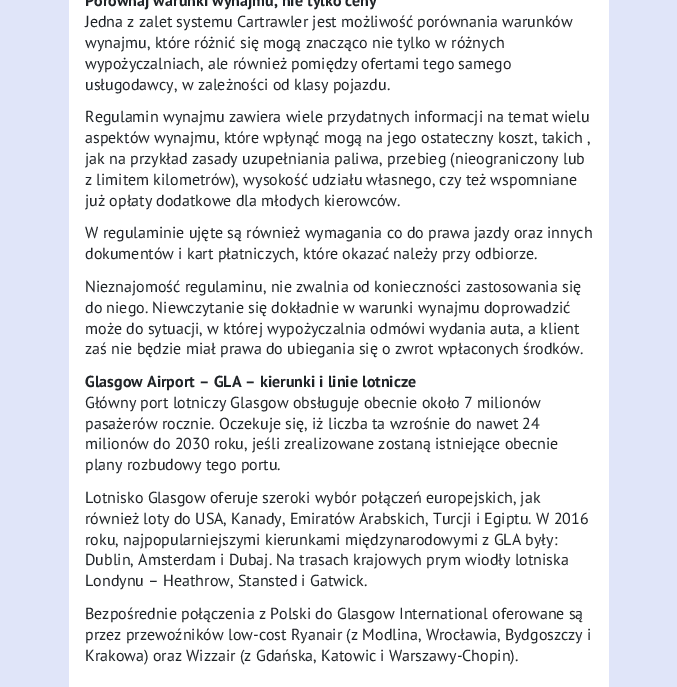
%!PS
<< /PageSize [677 687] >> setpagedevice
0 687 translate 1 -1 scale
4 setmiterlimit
0.878 0.898 0.976 setrgbcolor
0 0 677 687 rectfill
1 setgray
69 0 540 687 rectfill
/PTSans-Bold [16 0 0 -16 0 0] selectfont
0.129 0.145 0.161 setrgbcolor
85 6 moveto (Porównaj warunki wynajmu, nie tylko ceny) show
/PTSans-Regular [16 0 0 -16 0 0] selectfont
85 27 moveto (Jedna z zalet systemu Cartrawler jest możliwość porównania warunków) show
85 48 moveto (wynajmu, które różnić się mogą znacząco nie tylko w różnych) show
85 69 moveto (wypożyczalniach, ale również pomiędzy ofertami tego samego) show
85 90 moveto (usługodawcy, w zależności od klasy pojazdu.) show
85 122 moveto (Regulamin wynajmu zawiera wiele przydatnych informacji na temat wielu) show
85 143 moveto (aspektów wynajmu, które wpłynąć mogą na jego ostateczny koszt, takich ,) show
85 164 moveto (jak na przykład zasady uzupełniania paliwa, przebieg \(nieograniczony lub) show
85 185 moveto (z limitem kilometrów\), wysokość udziału własnego, czy też wspomniane) show
85 206 moveto (już opłaty dodatkowe dla młodych kierowców.) show
85 238 moveto (W regulaminie ujęte są również wymagania co do prawa jazdy oraz innych) show
85 259 moveto (dokumentów i kart płatniczych, które okazać należy przy odbiorze.) show
85 292 moveto (Nieznajomość regulaminu, nie zwalnia od konieczności zastosowania się) show
85 313 moveto (do niego. Niewczytanie się dokładnie w warunki wynajmu doprowadzić) show
85 334 moveto (może do sytuacji, w której wypożyczalnia odmówi wydania auta, a klient) show
85 354 moveto (zaś nie będzie miał prawa do ubiegania się o zwrot wpłaconych środków.) show
/PTSans-Bold [16 0 0 -16 0 0] selectfont
85 387 moveto (Glasgow Airport – GLA – kierunki i linie lotnicze) show
/PTSans-Regular [16 0 0 -16 0 0] selectfont
85 408 moveto (Główny port lotniczy Glasgow obsługuje obecnie około 7 milionów) show
85 429 moveto (pasażerów rocznie. Oczekuje się, iż liczba ta wzrośnie do nawet 24) show
85 449 moveto (milionów do 2030 roku, jeśli zrealizowane zostaną istniejące obecnie) show
85 470 moveto (plany rozbudowy tego portu.) show
85 503 moveto (Lotnisko Glasgow oferuje szeroki wybór połączeń europejskich, jak) show
85 524 moveto (również loty do USA, Kanady, Emiratów Arabskich, Turcji i Egiptu. W 2016) show
85 545 moveto (roku, najpopularniejszymi kierunkami międzynarodowymi z GLA były:) show
85 565 moveto (Dublin, Amsterdam i Dubaj. Na trasach krajowych prym wiodły lotniska) show
85 586 moveto (Londynu – Heathrow, Stansted i Gatwick.) show
85 619 moveto (Bezpośrednie połączenia z Polski do Glasgow International oferowane są) show
85 640 moveto (przez przewoźników low-cost Ryanair \(z Modlina, Wrocławia, Bydgoszczy i) show
85 661 moveto (Krakowa\) oraz Wizzair \(z Gdańska, Katowic i Warszawy-Chopin\).) show
showpage
